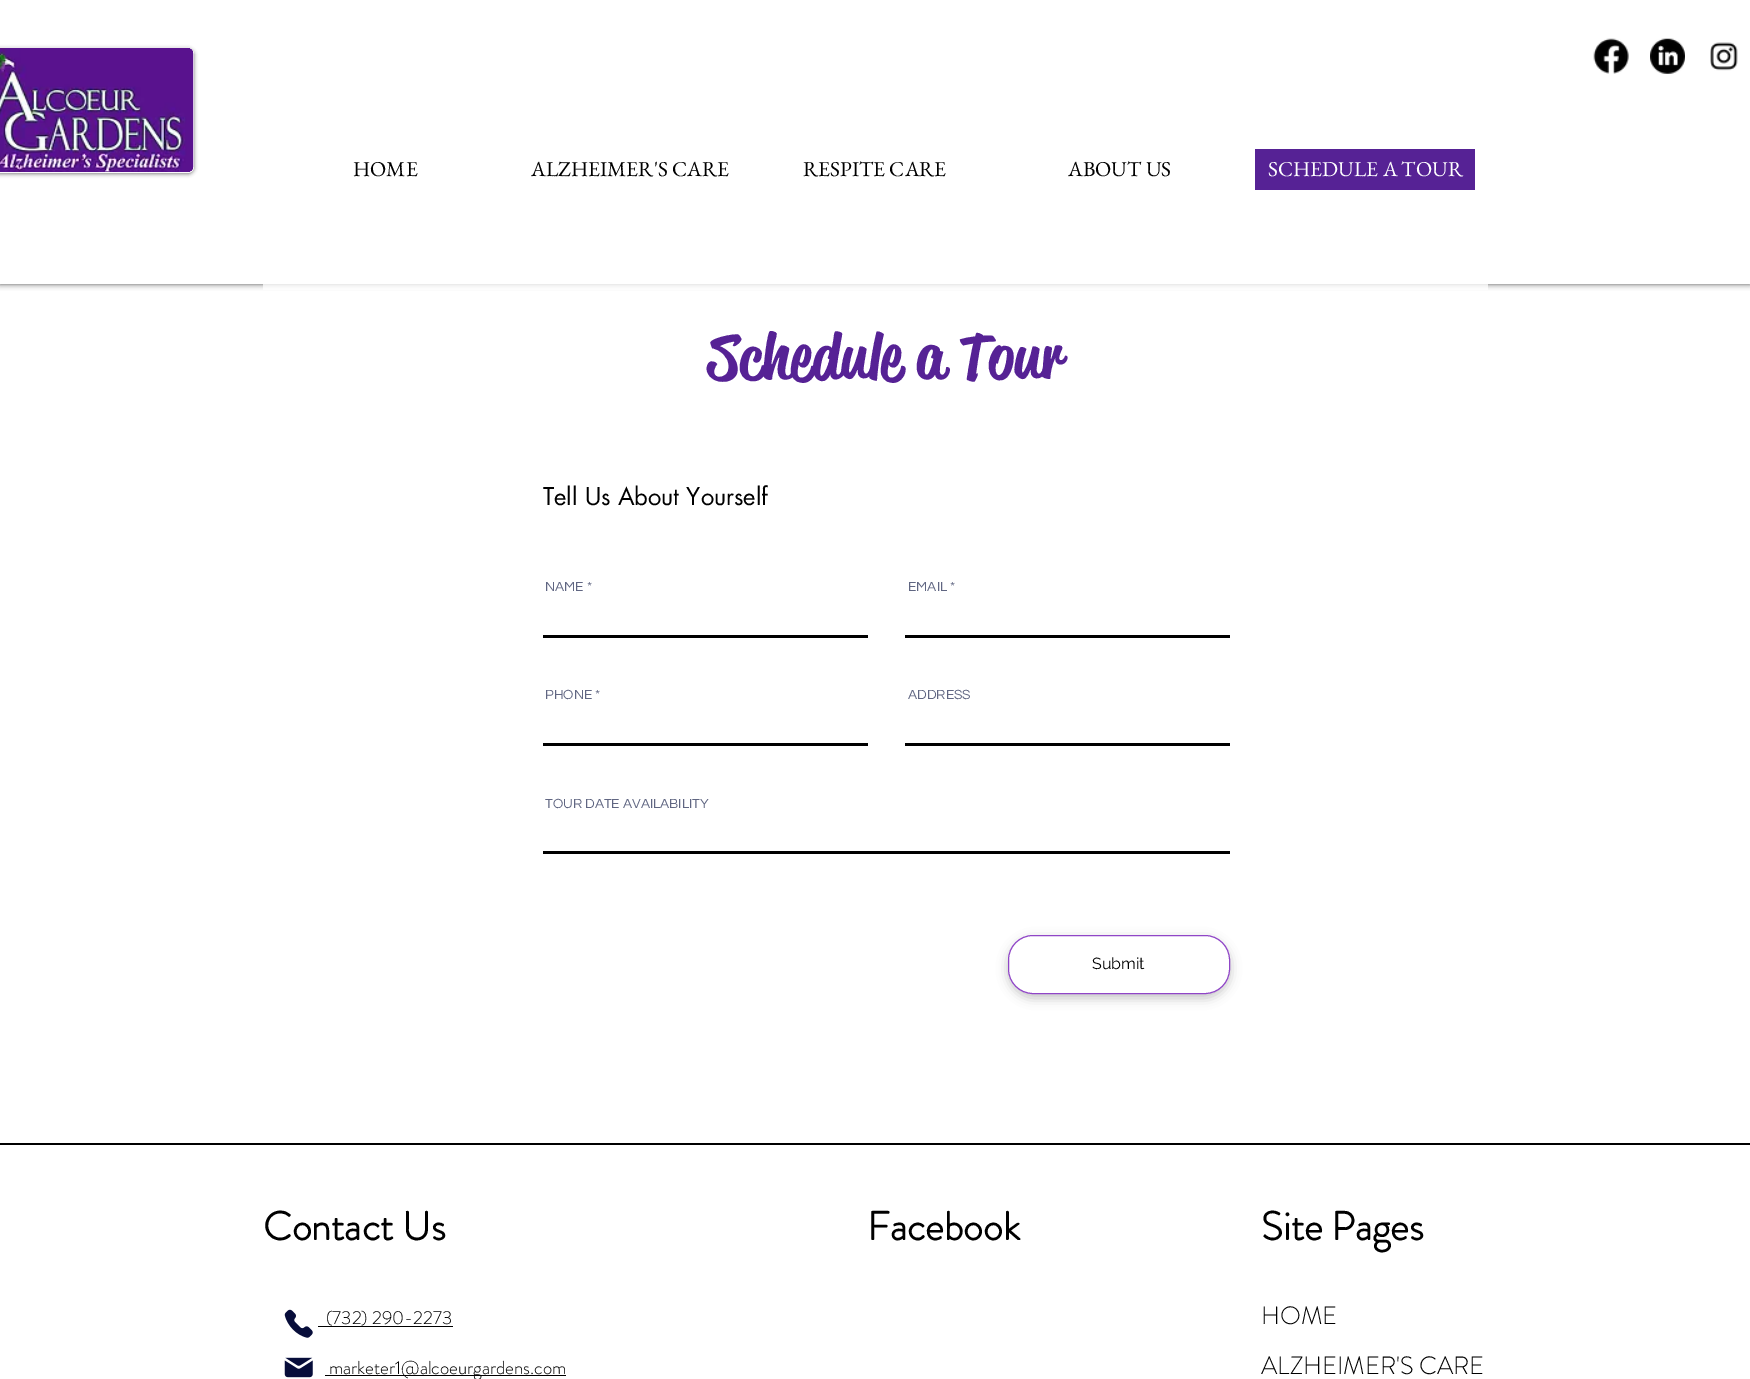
%!PS
<< /PageSize [1750 1379] /PageUsesTransparency true >> setpagedevice
/alpha { dup .setfillconstantalpha .setstrokeconstantalpha } def
/roundrect { 5 dict begin { /r /h /w /y /x } { exch def } forall
  x r add y moveto x w add y 2 copy h add r arct x w add y h add x 1 index r arct
  x y h add x y r arct x y 2 copy exch w add exch r arct closepath end } def
/shadow { 12 dict begin { /a /b /q /h /w /y /x } { exch def } forall gsave /was 0 def
  9 -2 -9 { dup b mul 4 div /e exch def 1 sub .425 mul 2.718 exch exp 1 add a .99 .min exch div /now exch def
    1 1 now sub 1 was sub div sub alpha /was now def
    w h .min e 2 mul add 0 gt { x e sub y e sub w e 2 mul add h e 2 mul add
      q e add b .6 mul add w h .min 2 div e add .min 0 .max roundrect fill } if } for grestore end } def
/picture { 5 dict begin { /h /w /y /x /name } { exch def } forall
  gsave x y translate w h scale
  w h 8 [w 0 0 h 0 0] name (r) file false 3 colorimage grestore end } def
0 .pushpdf14devicefilter
0 1379 translate 1 -1 scale
4 setmiterlimit
1 setgray
0 0 1750 1379 rectfill
0 setgray
0 0 1750 284 0 3 0.7 shadow
1 setgray
0 0 1750 284 rectfill
0 setgray
-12 49 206 125 6 2 0.5 shadow
1 setgray
-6 48 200 125 6 roundrect fill
(img1.rgb) 0 47 194 126 picture
/EBGaramond-Regular [21.25 0 0 -21.25 0 0] selectfont
0 setgray
353 176 moveto (HOME) show
531 176 moveto (ALZHEIMER'S CARE) show
803 176 moveto (RESPITE CARE) show
1068 176 moveto (ABOUT US) show
0.337 0.133 0.584 setrgbcolor
1255 149 220 41 rectfill
1 setgray
1268 176 moveto (SCHEDULE A TOUR) show
(img2.rgb) 1593 38 36 36 picture
(img3.rgb) 1650 38 35 36 picture
(img4.rgb) 1710 42 28 29 picture
0.75 alpha
263 284 1225 6 rectfill
/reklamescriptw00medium-Medium [62.5 0 0 -62.5 0 0] selectfont
1 alpha
0.337 0.133 0.584 setrgbcolor
708 378 moveto (Schedule a Tour) show
/futura-Regular [23.75 0 0 -23.75 0 0] selectfont
0 setgray
543 505 moveto (Tell Us About Yourself) show
/Questrial-Regular [13.75 0 0 -13.75 0 0] selectfont
0.376 0.4 0.51 setrgbcolor
545 591 moveto (NAME *) show
0 setgray
543 635 325 3 rectfill
0.376 0.4 0.51 setrgbcolor
908 591 moveto (EMAIL *) show
0 setgray
905 635 325 3 rectfill
0.376 0.4 0.51 setrgbcolor
545 699 moveto (PHONE *) show
0 setgray
543 743 325 3 rectfill
0.376 0.4 0.51 setrgbcolor
908 699 moveto (ADDRESS) show
0 setgray
905 743 325 3 rectfill
0.376 0.4 0.51 setrgbcolor
545 808 moveto (TOUR DATE AVAILABILITY) show
0 setgray
543 851 687 3 rectfill
1008 939 222 59 25 5.5 0.23 shadow
1 setgray
1008.5 935.5 221 58 24.5 roundrect gsave fill grestore
0.565 0.275 0.78 setrgbcolor
stroke
/Raleway-Regular [16 0 0 -16 0 0] selectfont
0 setgray
1092 969 moveto (Submit) show
0 1143 1750 2 rectfill
/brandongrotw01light-Bold [40 0 0 -40 0 0] selectfont
263 1240 moveto (Contact Us) show
867 1240 moveto (Facebook) show
1261 1240 moveto (Site Pages) show
(img5.rgb) 284 1309 29 29 picture
/brandongrotw01light-Light [18.75 0 0 -18.75 0 0] selectfont
326 1324 moveto (\(732\) 290-2273) show
318 1326 135 1 rectfill
325 1375 241 1 rectfill
329 1374 moveto (marketer1@alcoeurgardens.com) show
/brandongrotw01light-Light [25 0 0 -25 0 0] selectfont
1261 1324 moveto (HOME) show
1261 1374 moveto (ALZHEIMER'S CARE) show
(img6.rgb) 284 1357 29 21 picture
.poppdf14devicefilter showpage
